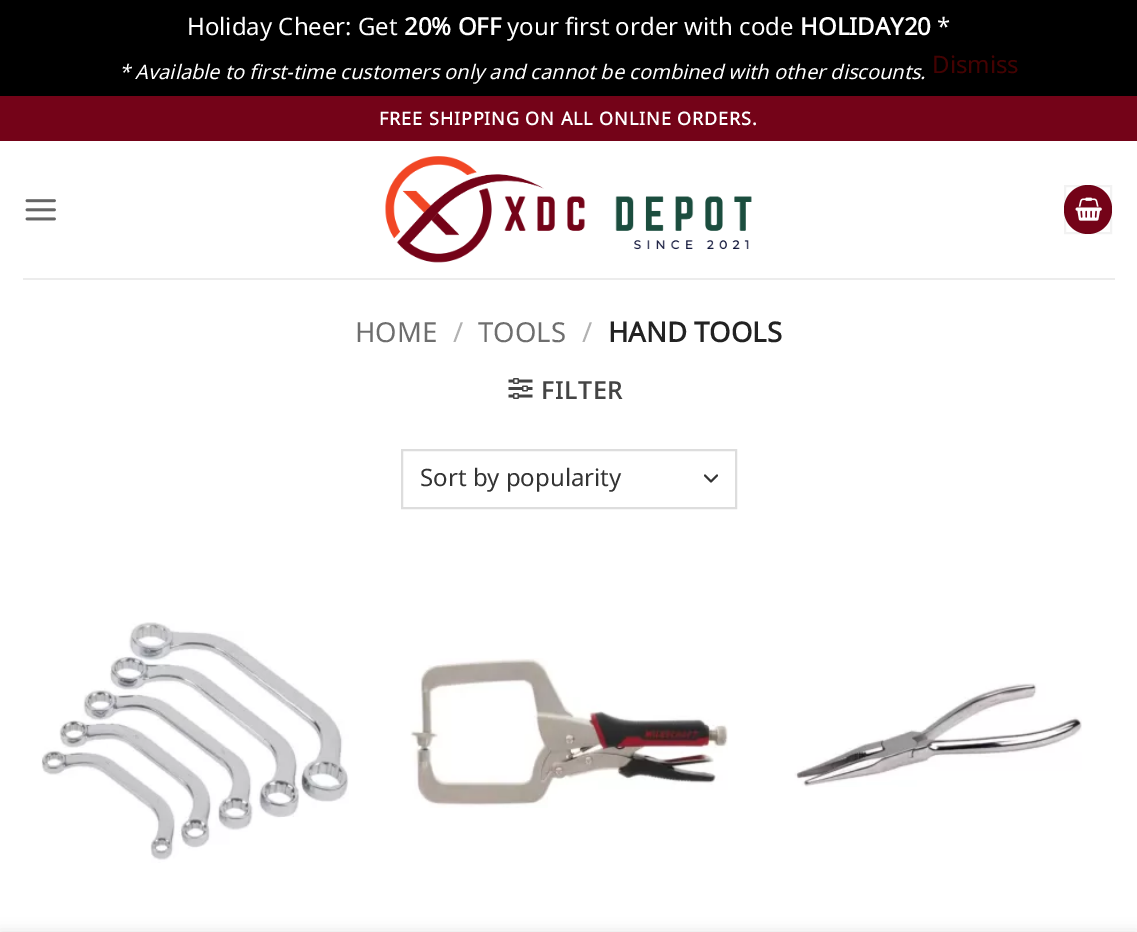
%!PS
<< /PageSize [1137 932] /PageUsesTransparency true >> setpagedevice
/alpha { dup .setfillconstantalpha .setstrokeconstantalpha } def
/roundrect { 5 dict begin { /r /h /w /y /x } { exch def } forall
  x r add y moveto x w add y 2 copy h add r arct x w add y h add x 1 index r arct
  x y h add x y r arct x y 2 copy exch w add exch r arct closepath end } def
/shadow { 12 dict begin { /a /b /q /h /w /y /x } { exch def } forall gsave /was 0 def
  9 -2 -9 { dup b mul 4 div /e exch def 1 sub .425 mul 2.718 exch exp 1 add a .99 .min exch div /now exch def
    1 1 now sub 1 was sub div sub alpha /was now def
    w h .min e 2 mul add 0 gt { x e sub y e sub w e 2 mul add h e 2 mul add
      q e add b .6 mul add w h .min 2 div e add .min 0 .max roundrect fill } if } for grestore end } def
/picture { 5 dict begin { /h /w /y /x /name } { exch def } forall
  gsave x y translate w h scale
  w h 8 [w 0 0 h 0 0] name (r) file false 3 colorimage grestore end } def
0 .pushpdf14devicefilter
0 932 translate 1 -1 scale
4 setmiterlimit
0 setgray
0 0 1137 932 rectfill
/NotoSans-Regular [24 0 0 -24 0 0] selectfont
1 setgray
187 35 moveto (Holiday Cheer: Get) show
/NotoSans-Bold [24 0 0 -24 0 0] selectfont
404 35 moveto (20% OFF) show
/NotoSans-Regular [24 0 0 -24 0 0] selectfont
507 35 moveto (your first order with code) show
/NotoSans-Bold [24 0 0 -24 0 0] selectfont
800 35 moveto (HOLIDAY20) show
/NotoSans-Regular [24 0 0 -24 0 0] selectfont
937 35 moveto (*) show
/NotoSans-Italic [20 0 0 -20 0 0] selectfont
119 79 moveto (* Available to first-time customers only and cannot be combined with other discounts.) show
/NotoSans-Regular [24 0 0 -24 0 0] selectfont
0.267 0.008 0.008 setrgbcolor
932 73 moveto (Dismiss) show
1 setgray
0 141 1137 791 rectfill
0.455 0.012 0.094 setrgbcolor
0 96 1137 45 rectfill
/NotoSans-Bold [18 0 0 -18 0 0] selectfont
1 setgray
379 125 moveto 0.9 0 (FREE SHIPPING ON ALL ONLINE ORDERS.) ashow
(img1.rgb) 25 199 31 22 picture
(img2.rgb) 385 156 367 107 picture
0.455 0.012 0.094 setrgbcolor
1064 185 48 49 24 roundrect fill
0.05 alpha
0 setgray
2 setlinewidth
1065 186 46 47 rectstroke
1 alpha
(img3.rgb) 1075 197 27 24 picture
0.925 setgray
23 278 1092 2 rectfill
/NotoSans-Regular [27.5 0 0 -27.5 0 0] selectfont
0.431 setgray
355 342 moveto (HOME) show
0.698 setgray
453 342 moveto (/) show
0.431 setgray
478 342 moveto (TOOLS) show
0.698 setgray
582 342 moveto (/) show
/NotoSans-Bold [27.5 0 0 -27.5 0 0] selectfont
0.133 setgray
608 342 moveto (HAND TOOLS) show
(img4.rgb) 508 378 25 21 picture
/NotoSans-Bold [24 0 0 -24 0 0] selectfont
0.267 setgray
541 399 moveto 1.25 0 (FILTER) ashow
0.2 setgray
1 setlinecap
1 setlinejoin
newpath 705 475.5 moveto 711 481.5 lineto 717 475.5 lineto stroke
0.867 setgray
0 setlinecap
0 setlinejoin
402 450 334 58 rectstroke
/NotoSans-Regular [24 0 0 -24 0 0] selectfont
0.2 setgray
420 486 moveto (Sort by popularity) show
(img5.rgb) 41 622 308 241 picture
(img6.rgb) 410 658 318 150 picture
(img7.rgb) 794 683 288 104 picture
0 setgray
0 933 1137 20 0 7 0.14 shadow
.poppdf14devicefilter showpage
